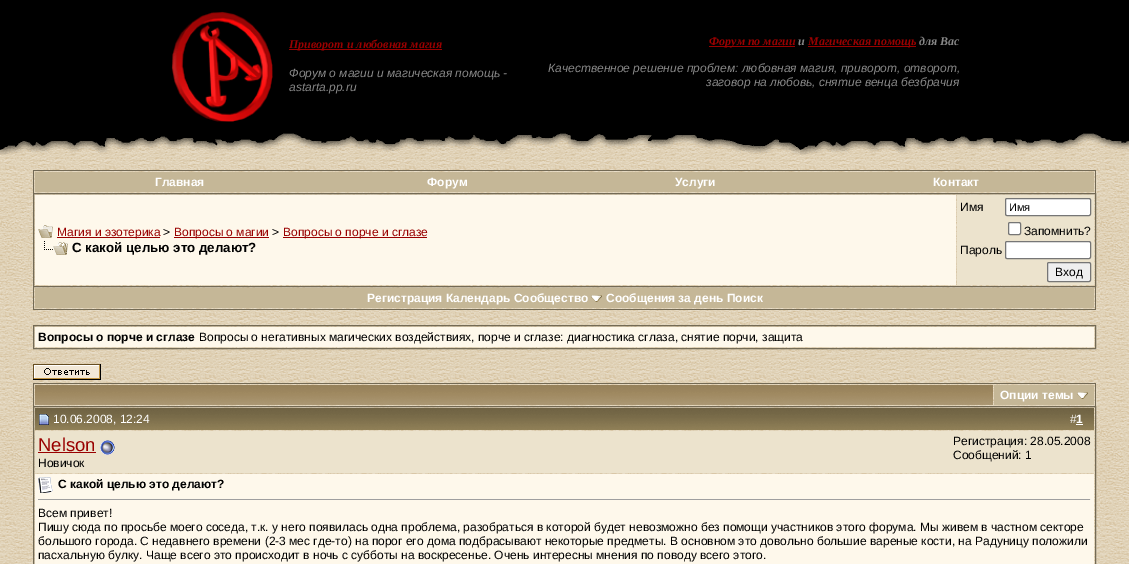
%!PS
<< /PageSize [1129 564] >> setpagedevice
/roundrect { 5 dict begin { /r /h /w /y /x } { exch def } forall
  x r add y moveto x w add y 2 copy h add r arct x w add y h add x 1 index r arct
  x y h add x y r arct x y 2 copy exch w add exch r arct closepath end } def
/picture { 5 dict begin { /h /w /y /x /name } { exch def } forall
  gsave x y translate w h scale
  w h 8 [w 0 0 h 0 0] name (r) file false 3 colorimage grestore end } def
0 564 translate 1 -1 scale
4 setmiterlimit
1 setgray
0 0 1129 564 rectfill
(img1.rgb) 0 155 1129 409 picture
0 setgray
0 0 1129 133 rectfill
(img2.rgb) 0 133 1129 22 picture
(img3.rgb) 171 11 102 111 picture
0.6 0 0 setrgbcolor
289 49 153 1 rectfill
/LiberationSerif-BoldItalic [12 0 0 -12 0 0] selectfont
289 48 moveto (Приворот и любовная магия) show
/LiberationSans-Italic [12 0 0 -12 0 0] selectfont
0.533 setgray
289 77 moveto (Форум о магии и магическая помощь -) show
289 91 moveto (astarta.pp.ru) show
0.6 0 0 setrgbcolor
709 46 86 1 rectfill
/LiberationSerif-BoldItalic [12 0 0 -12 0 0] selectfont
709 45 moveto (Форум по магии) show
0.533 setgray
798 45 moveto (и) show
0.6 0 0 setrgbcolor
808 46 108 1 rectfill
808 45 moveto (Магическая помощь) show
0.533 setgray
919 45 moveto (для Вас) show
/LiberationSans-Italic [12 0 0 -12 0 0] selectfont
548 72 moveto (Качественное решение проблем: любовная магия, приворот, отворот,) show
706 86 moveto (заговор на любовь, снятие венца безбрачия) show
0.451 0.416 0.333 setrgbcolor
33 170 1063 1 rectfill
1095 170 1 23 rectfill
33 170 1 23 rectfill
0.773 0.718 0.592 setrgbcolor
35 172 1059 20 rectfill
/LiberationSans-Bold [12 0 0 -12 0 0] selectfont
1 setgray
155 186 moveto (Главная) show
427 186 moveto (Форум) show
675 186 moveto (Услуги) show
933 186 moveto (Контакт) show
0.451 0.416 0.333 setrgbcolor
33.5 193.5 1062 93 rectstroke
0.996 0.973 0.922 setrgbcolor
35 195 921 90 rectfill
(img4.rgb) 38 225 15 13 picture
0.6 0 0 setrgbcolor
57 237 103 1 rectfill
/LiberationSans-Regular [12 0 0 -12 0 0] selectfont
57 236 moveto (Магия и эзотерика) show
0 setgray
163 236 moveto (>) show
0.6 0 0 setrgbcolor
174 237 95 1 rectfill
174 236 moveto (Вопросы о магии) show
0 setgray
272 236 moveto (>) show
0.6 0 0 setrgbcolor
283 237 144 1 rectfill
283 236 moveto (Вопросы о порче и сглазе) show
(img5.rgb) 44 241 24 14 picture
/LiberationSans-Bold [13.3 0 0 -13.3 0 0] selectfont
0 setgray
72 252 moveto (С какой целью это делают?) show
0.925 0.89 0.804 setrgbcolor
957 195 137 90 rectfill
/LiberationSans-Regular [12 0 0 -12 0 0] selectfont
0 setgray
960 211 moveto (Имя) show
1 setgray
1005.5 198.5 85 17 1.5 roundrect gsave fill grestore
0.463 setgray
stroke
/LiberationSans-Regular [11 0 0 -11 0 0] selectfont
0 setgray
1009 211 moveto (Имя) show
1 setgray
1008.5 222.5 12 12 1.5 roundrect gsave fill grestore
0.463 setgray
stroke
/LiberationSans-Regular [12 0 0 -12 0 0] selectfont
0 setgray
1024 235 moveto (Запомнить?) show
960 254 moveto (Пароль) show
1 setgray
1005.5 241.5 85 17 1.5 roundrect gsave fill grestore
0.463 setgray
stroke
0.937 setgray
1047.5 262.5 43 19 1.5 roundrect gsave fill grestore
0.463 setgray
stroke
0 setgray
1055 276 moveto (Вход) show
0.451 0.416 0.333 setrgbcolor
1095 287 1 23 rectfill
33 309 1063 1 rectfill
33 287 1 23 rectfill
0.773 0.718 0.592 setrgbcolor
35 288 1059 20 rectfill
/LiberationSans-Bold [12 0 0 -12 0 0] selectfont
1 setgray
367 302 moveto (Регистрация Календарь Сообщество) show
(img6.rgb) 591 295 11 7 picture
606 302 moveto (Сообщения за день Поиск) show
0.451 0.416 0.333 setrgbcolor
33.5 325.5 1062 23 rectstroke
0.996 0.973 0.922 setrgbcolor
35 327 1059 20 rectfill
0 setgray
38 341 moveto (Вопросы о порче и сглазе) show
/LiberationSans-Regular [12 0 0 -12 0 0] selectfont
199 341 moveto (Вопросы о негативных магических воздействиях, порче и сглазе: диагностика сглаза, снятие порчи, защита) show
(img7.rgb) 33 364 68 16 picture
0.451 0.416 0.333 setrgbcolor
33 383 1063 1 rectfill
1095 383 1 23 rectfill
33 383 1 23 rectfill
(img8.rgb) 35 385 958 20 picture
0.773 0.718 0.592 setrgbcolor
994 385 100 20 rectfill
/LiberationSans-Bold [12 0 0 -12 0 0] selectfont
1 setgray
1000 399 moveto (Опции темы) show
(img6.rgb) 1077 392 11 7 picture
0.451 0.416 0.333 setrgbcolor
33.5 406.5 1062 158 rectstroke
(img9.rgb) 35 408 1059 22 picture
(img10.rgb) 39 414 10 11 picture
/LiberationSans-Regular [12 0 0 -12 0 0] selectfont
1 setgray
53 423 moveto (10.06.2008, 12:24) show
1070 423 moveto (#) show
/LiberationSans-Bold [12 0 0 -12 0 0] selectfont
1076 423 moveto (1) show
1076 424 7 1 rectfill
0.925 0.89 0.804 setrgbcolor
35 431 1059 42 rectfill
/LiberationSans-Regular [18.5 0 0 -18.5 0 0] selectfont
0.6 0 0 setrgbcolor
38 451 moveto (Nelson) show
38 452 58 1 rectfill
(img11.rgb) 100 440 15 15 picture
/LiberationSans-Regular [12 0 0 -12 0 0] selectfont
0 setgray
38 467 moveto (Новичок) show
953 445 moveto (Регистрация: 28.05.2008) show
953 459 moveto (Сообщений: 1) show
0.996 0.973 0.922 setrgbcolor
35 474 1059 90 rectfill
(img12.rgb) 38 477 15 16 picture
/LiberationSans-Bold [12 0 0 -12 0 0] selectfont
0 setgray
58 488 moveto (С какой целью это делают?) show
0.624 setgray
38 499 1053 1 rectfill
0.933 setgray
1090 499 1 1 rectfill
/LiberationSans-Regular [12 0 0 -12 0 0] selectfont
0 setgray
38 517 moveto (Всем привет!) show
38 531 moveto (Пишу сюда по просьбе моего соседа, т.к. у него появилась одна проблема, разобраться в которой будет невозможно без помощи участников этого форума. Мы живем в частном секторе) show
38 545 moveto (большого города. С недавнего времени \(2-3 мес где-то\) на порог его дома подбрасывают некоторые предметы. В основном это довольно большие вареные кости, на Радуницу положили) show
38 559 moveto (пасхальную булку. Чаще всего это происходит в ночь с субботы на воскресенье. Очень интересны мнения по поводу всего этого.) show
showpage
